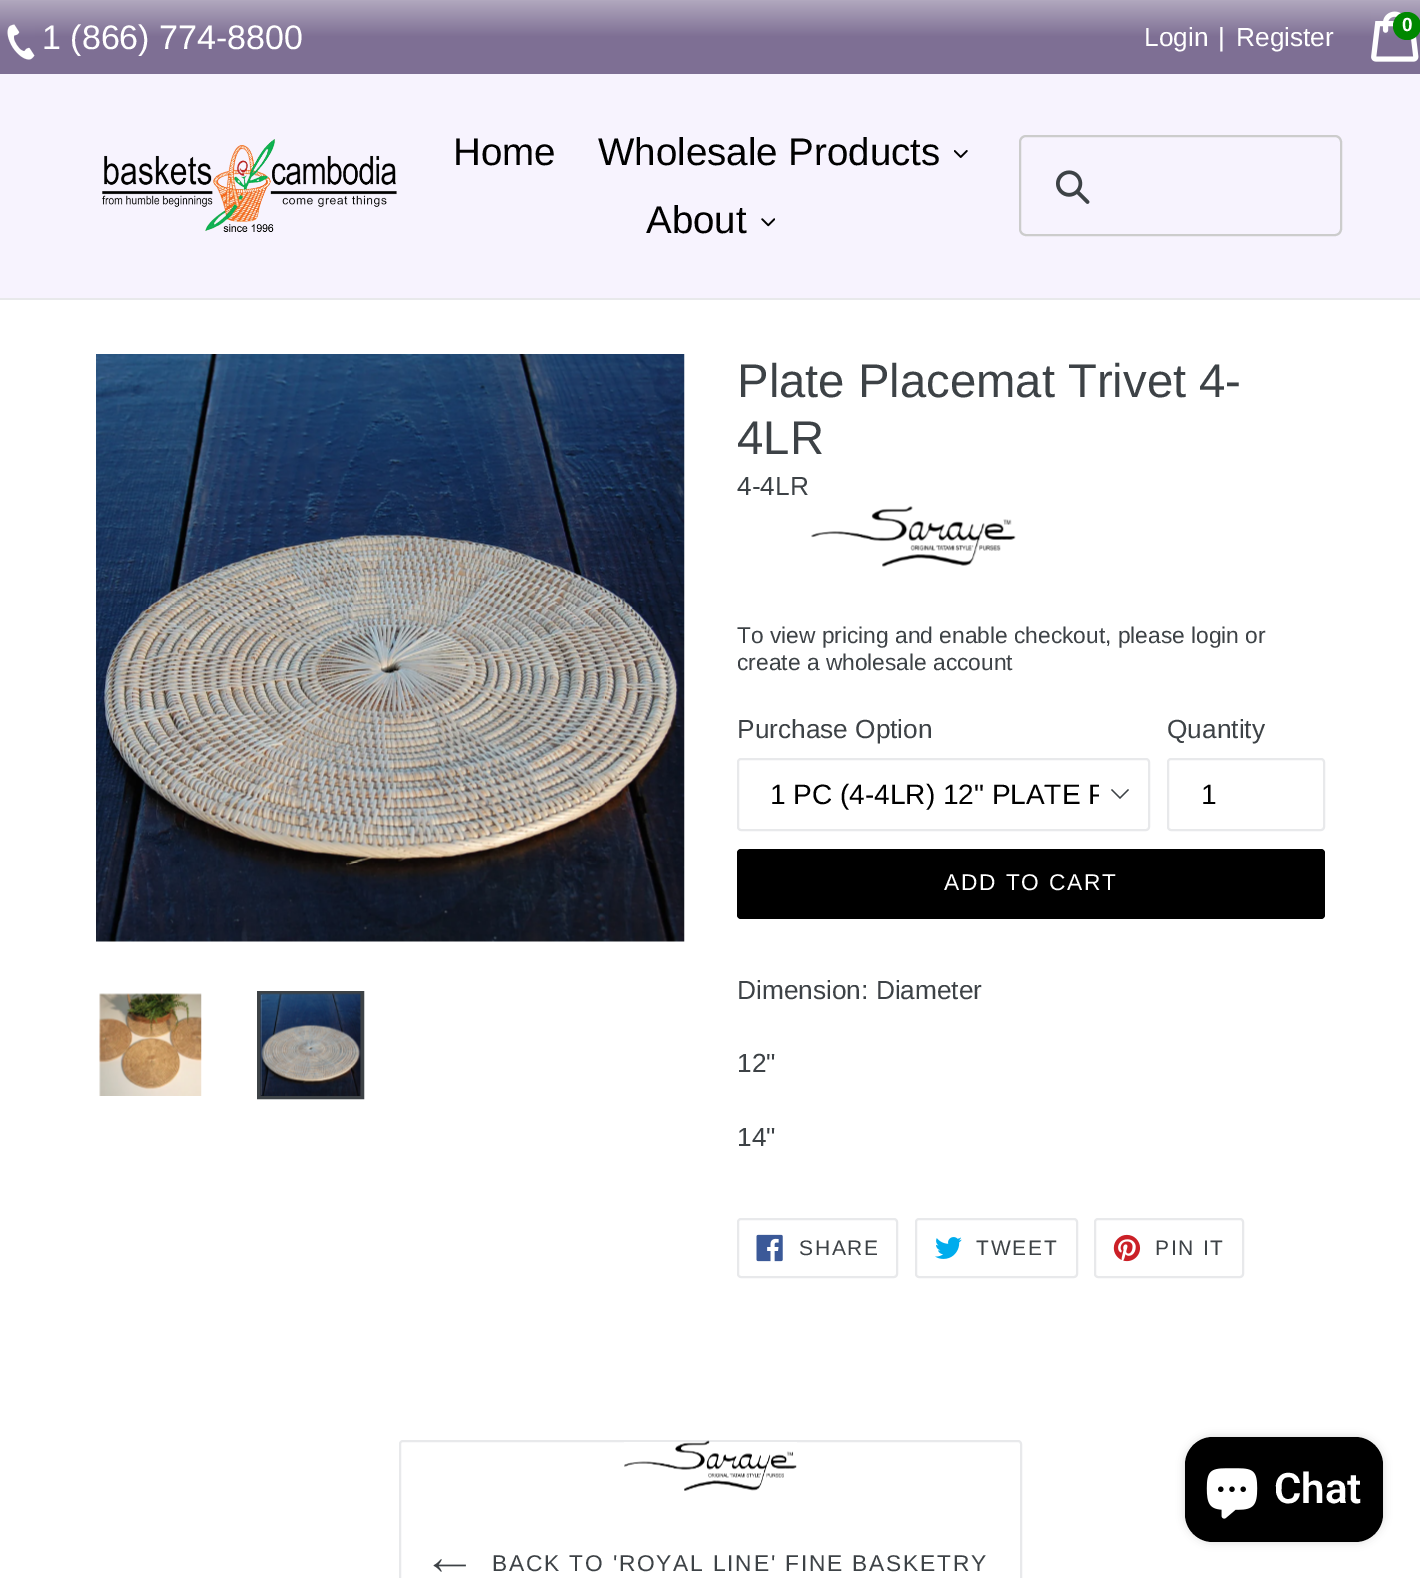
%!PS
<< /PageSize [1420 1578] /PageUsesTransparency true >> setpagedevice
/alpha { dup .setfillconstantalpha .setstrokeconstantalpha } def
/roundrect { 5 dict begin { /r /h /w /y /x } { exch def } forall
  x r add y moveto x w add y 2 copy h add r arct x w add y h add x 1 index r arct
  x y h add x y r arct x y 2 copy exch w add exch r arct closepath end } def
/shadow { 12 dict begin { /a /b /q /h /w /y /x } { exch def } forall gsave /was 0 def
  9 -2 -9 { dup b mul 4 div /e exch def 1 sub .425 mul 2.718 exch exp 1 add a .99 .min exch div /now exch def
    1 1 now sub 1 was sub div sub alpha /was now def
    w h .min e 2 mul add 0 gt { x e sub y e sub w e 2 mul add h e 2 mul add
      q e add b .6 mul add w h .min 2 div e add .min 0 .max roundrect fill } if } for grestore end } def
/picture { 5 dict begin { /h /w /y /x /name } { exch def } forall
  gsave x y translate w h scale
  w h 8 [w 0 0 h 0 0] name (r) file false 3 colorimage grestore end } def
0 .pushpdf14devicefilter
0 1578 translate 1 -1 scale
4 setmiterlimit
1 setgray
0 0 1420 1578 rectfill
gsave newpath 0 0 moveto 1420 0 lineto 1420 74 lineto 0 74 lineto closepath clip newpath
<< /ShadingType 2 /ColorSpace /DeviceRGB /Coords [711 74 711 0] /Extend [true true] /Function << /FunctionType 3 /Domain [0 1] /Functions [<< /FunctionType 2 /Domain [0 1] /C0 [0.494 0.435 0.58] /C1 [0.494 0.435 0.58] /N 1 >> << /FunctionType 2 /Domain [0 1] /C0 [0.494 0.435 0.58] /C1 [0.694 0.659 0.745] /N 1 >>] /Bounds [0.5] /Encode [0 1 0 1] >> >> shfill grestore
(img1.rgb) 7 24 28 36 picture
/LiberationSans-Regular [34 0 0 -34 0 0] selectfont
42 49 moveto (1 \(866\) 774-8800) show
(img2.rgb) 1371 11 48 51 picture
0 0.533 0 setrgbcolor
newpath 1407 26 14 0 360 arc closepath fill
/LiberationSans-Bold [19 0 0 -19 0 0] selectfont
1 setgray
1402 31 moveto (0) show
/LiberationSans-Regular [26.25 0 0 -26.25 0 0] selectfont
1144 46 moveto (Login) show
1218 46 moveto (|) show
1236 46 moveto (Register) show
0.969 0.953 0.996 setrgbcolor
0 74 1420 224 rectfill
0.91 0.914 0.922 setrgbcolor
0 298 1420 2 rectfill
(img3.rgb) 102 139 295 93 picture
/LiberationSans-Regular [38.5 0 0 -38.5 0 0] selectfont
0 setgray
453 165 moveto (Home) show
598 165 moveto (Wholesale Products) show
(img4.rgb) 954 150 14 8 picture
646 233 moveto (About) show
(img5.rgb) 761 218 14 9 picture
0.8 setgray
2 setlinewidth
1020 136 321 99 6 roundrect stroke
(img6.rgb) 1056 170 34 34 picture
(img7.rgb) 96 354 589 588 picture
(img8.rgb) 99 993 103 103 picture
0.239 0.259 0.275 setrgbcolor
4 setlinewidth
259 993 103 104 rectstroke
(img9.rgb) 260 993 101 103 picture
/LiberationSans-Regular [47.25 0 0 -47.25 0 0] selectfont
737 397 moveto (Plate Placemat Trivet 4-) show
737 454 moveto (4LR) show
/LiberationSans-Regular [26.25 0 0 -26.25 0 0] selectfont
737 495 moveto (4-4LR) show
(img10.rgb) 811 506 205 61 picture
/LiberationSans-Regular [22.75 0 0 -22.75 0 0] selectfont
737 643 moveto (To view pricing and enable checkout, please login or) show
737 670 moveto (create a wholesale account) show
/LiberationSans-Regular [26.25 0 0 -26.25 0 0] selectfont
737 738 moveto (Purchase Option) show
newpath 1120 799 moveto 1111 790 lineto 1112 789 lineto 1120 797 lineto 1128 789 lineto 1129 790 lineto closepath fill
0.91 0.914 0.922 setrgbcolor
2 setlinewidth
738 759 411 71 3 roundrect stroke
gsave
770 777 329 35 rectclip
/LiberationSans-Regular [28 0 0 -28 0 0] selectfont
0 setgray
770 804 moveto (1 PC \(4-4LR\) 12" PLATE P) show
grestore
0.239 0.259 0.275 setrgbcolor
1167 738 moveto (Quantity) show
0.91 0.914 0.922 setrgbcolor
1168 759 156 71 3 roundrect stroke
/LiberationSans-Regular [28 0 0 -28 0 0] selectfont
0 setgray
1201 804 moveto (1) show
737 849 588 70 4 roundrect fill
/LiberationSans-Regular [22.75 0 0 -22.75 0 0] selectfont
1 setgray
944 890 moveto 1.8 0 (ADD TO CART) ashow
/LiberationSans-Regular [26.25 0 0 -26.25 0 0] selectfont
0.239 0.259 0.275 setrgbcolor
737 999 moveto (Dimension: Diameter) show
737 1072 moveto (12") show
737 1146 moveto (14") show
0.91 0.914 0.922 setrgbcolor
738 1219 159 58 3 roundrect stroke
(img11.rgb) 756 1234 27 28 picture
/LiberationSans-Regular [21 0 0 -21 0 0] selectfont
0.239 0.259 0.275 setrgbcolor
799 1255 moveto 1.75 0 (SHARE) ashow
0.91 0.914 0.922 setrgbcolor
916 1219 161 58 3 roundrect stroke
(img12.rgb) 935 1237 27 22 picture
0.239 0.259 0.275 setrgbcolor
976 1255 moveto 1.75 0 (TWEET) ashow
0.91 0.914 0.922 setrgbcolor
1095 1219 148 58 3 roundrect stroke
(img13.rgb) 1113 1234 28 28 picture
0.239 0.259 0.275 setrgbcolor
1155 1255 moveto 1.75 0 (PIN IT) ashow
0.91 0.914 0.922 setrgbcolor
400 1441 621 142 3 roundrect stroke
(img14.rgb) 624 1440 173 51 picture
(img15.rgb) 433 1559 33 13 picture
/LiberationSans-Regular [22.75 0 0 -22.75 0 0] selectfont
0.239 0.259 0.275 setrgbcolor
492 1571 moveto 1.8 0 (BACK TO 'ROYAL LINE' FINE BASKETRY) ashow
0 setgray
1185 1437 198 105 28 4.5 0.15 shadow
1185 1437 198 105 28 roundrect fill
(img16.rgb) 1206 1468 52 51 picture
/Roboto-SemiBold [42 0 0 -42 0 0] selectfont
1 setgray
1274 1503 moveto (Chat) show
.poppdf14devicefilter showpage
